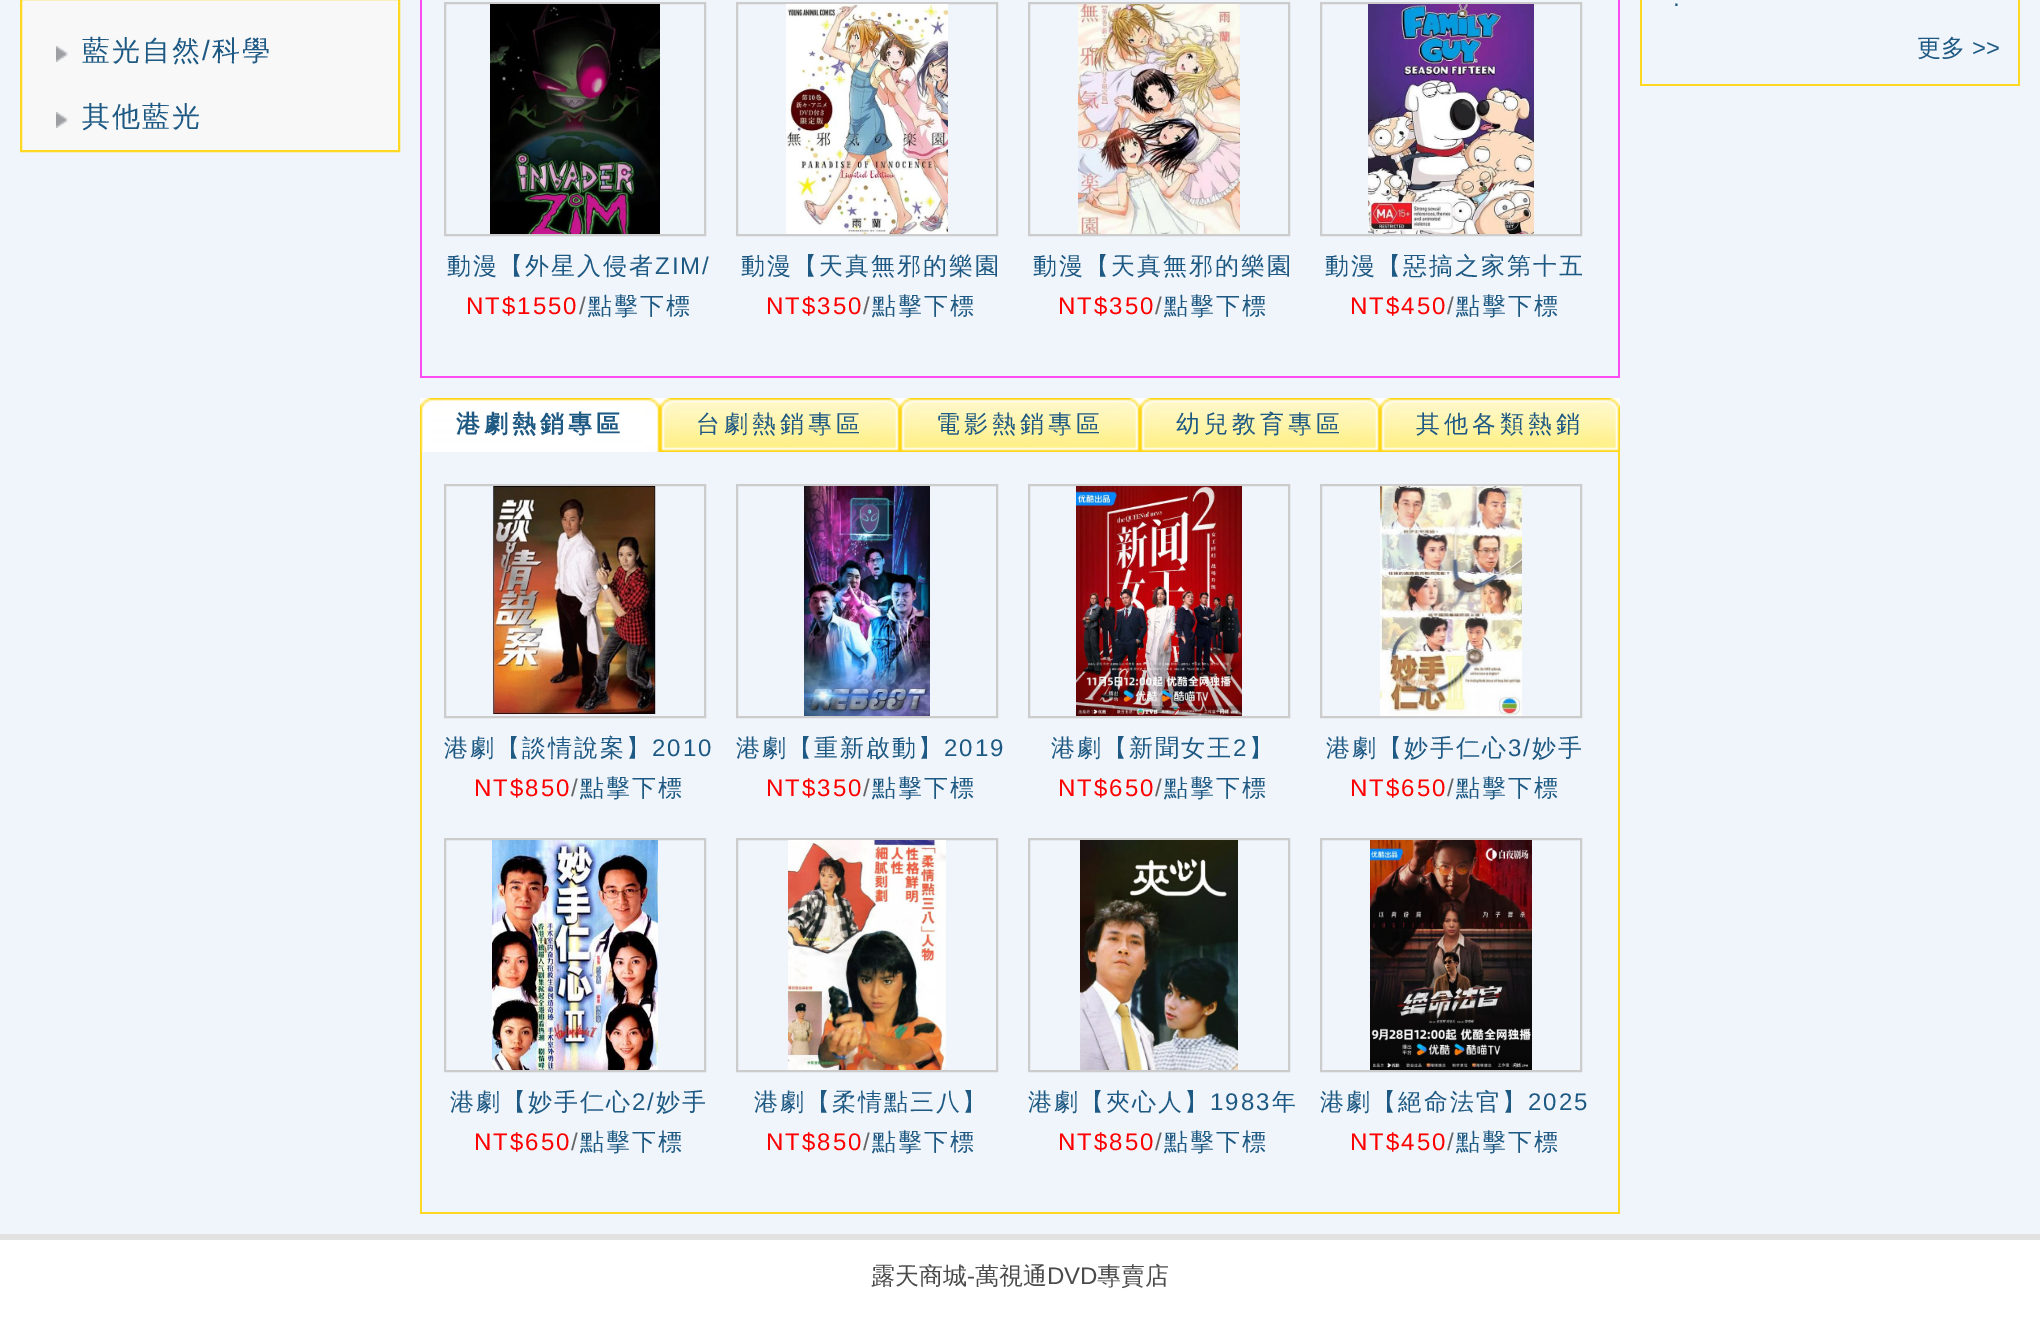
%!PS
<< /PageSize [2040 1344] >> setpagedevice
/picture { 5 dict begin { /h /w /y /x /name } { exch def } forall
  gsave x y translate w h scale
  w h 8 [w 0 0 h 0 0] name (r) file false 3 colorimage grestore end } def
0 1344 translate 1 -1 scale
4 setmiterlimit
1 setgray
0 0 2040 1344 rectfill
0.941 0.961 0.984 setrgbcolor
0 0 2040 1234 rectfill
0.973 setgray
newpath 21 -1 moveto 399 -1 lineto 399 151 lineto 21 151 lineto closepath gsave fill grestore
1 0.847 0.129 setrgbcolor
2 setlinewidth
stroke
(img1.rgb) 56 46 12 16 picture
/WenQuanYiZenHei-Medium [28 0 0 -28 0 0] selectfont
0.118 0.349 0.514 setrgbcolor
82 60 moveto 2 0 (藍光自然) ashow
/LiberationSans-Regular [28 0 0 -28 0 0] selectfont
202 60 moveto 2 0 (/) ashow
/WenQuanYiZenHei-Medium [28 0 0 -28 0 0] selectfont
212 60 moveto 2 0 (科學) ashow
(img1.rgb) 56 112 12 16 picture
82 126 moveto 2 0 (其他藍光) ashow
1 0.847 0.129 setrgbcolor
2018 0 2 86 rectfill
1640 84 380 2 rectfill
1640 0 2 86 rectfill
/LiberationSans-Regular [24 0 0 -24 0 0] selectfont
0.118 0.349 0.514 setrgbcolor
1673 6 moveto (.) show
/WenQuanYiZenHei-Medium [24 0 0 -24 0 0] selectfont
1917 56 moveto (更多) show
/LiberationSans-Regular [24 0 0 -24 0 0] selectfont
1972 56 moveto (>>) show
0.996 0.29 0.953 setrgbcolor
1618 0 2 378 rectfill
420 376 1200 2 rectfill
420 0 2 378 rectfill
0.8 setgray
445 3 260 232 rectstroke
(img2.rgb) 490 4 170 230 picture
/WenQuanYiZenHei-Medium [24 0 0 -24 0 0] selectfont
0.118 0.349 0.514 setrgbcolor
447 274 moveto 2 0 (動漫【外星入侵者) ashow
/LiberationSans-Regular [24 0 0 -24 0 0] selectfont
655 274 moveto 2 0 (ZIM/) ashow
1 0 0 setrgbcolor
466 314 moveto 2 0 (NT$1550) ashow
0.4 setgray
579 314 moveto 2 0 (/) ashow
/WenQuanYiZenHei-Medium [24 0 0 -24 0 0] selectfont
0.118 0.349 0.514 setrgbcolor
588 314 moveto 2 0 (點擊下標) ashow
0.8 setgray
737 3 260 232 rectstroke
(img3.rgb) 786 4 162 230 picture
0.118 0.349 0.514 setrgbcolor
741 274 moveto 2 0 (動漫【天真無邪的樂園) ashow
/LiberationSans-Regular [24 0 0 -24 0 0] selectfont
1 0 0 setrgbcolor
766 314 moveto 2 0 (NT$350) ashow
0.4 setgray
863 314 moveto 2 0 (/) ashow
/WenQuanYiZenHei-Medium [24 0 0 -24 0 0] selectfont
0.118 0.349 0.514 setrgbcolor
872 314 moveto 2 0 (點擊下標) ashow
0.8 setgray
1029 3 260 232 rectstroke
(img4.rgb) 1078 4 162 230 picture
0.118 0.349 0.514 setrgbcolor
1033 274 moveto 2 0 (動漫【天真無邪的樂園) ashow
/LiberationSans-Regular [24 0 0 -24 0 0] selectfont
1 0 0 setrgbcolor
1058 314 moveto 2 0 (NT$350) ashow
0.4 setgray
1155 314 moveto 2 0 (/) ashow
/WenQuanYiZenHei-Medium [24 0 0 -24 0 0] selectfont
0.118 0.349 0.514 setrgbcolor
1164 314 moveto 2 0 (點擊下標) ashow
0.8 setgray
1321 3 260 232 rectstroke
(img5.rgb) 1368 4 166 230 picture
0.118 0.349 0.514 setrgbcolor
1325 274 moveto 2 0 (動漫【惡搞之家第十五) ashow
/LiberationSans-Regular [24 0 0 -24 0 0] selectfont
1 0 0 setrgbcolor
1350 314 moveto 2 0 (NT$450) ashow
0.4 setgray
1447 314 moveto 2 0 (/) ashow
/WenQuanYiZenHei-Medium [24 0 0 -24 0 0] selectfont
0.118 0.349 0.514 setrgbcolor
1456 314 moveto 2 0 (點擊下標) ashow
(img6.rgb) 420 398 240 54 picture
/WenQuanYiZenHei-Bold [24 0 0 -24 0 0] selectfont
456 432 moveto 4 0 (港劇熱銷專區) ashow
(img7.rgb) 660 398 240 54 picture
/WenQuanYiZenHei-Medium [24 0 0 -24 0 0] selectfont
696 432 moveto 4 0 (台劇熱銷專區) ashow
(img7.rgb) 900 398 240 54 picture
936 432 moveto 4 0 (電影熱銷專區) ashow
(img7.rgb) 1140 398 240 54 picture
1176 432 moveto 4 0 (幼兒教育專區) ashow
(img7.rgb) 1380 398 240 54 picture
1416 432 moveto 4 0 (其他各類熱銷) ashow
1 0.847 0.129 setrgbcolor
1618 452 2 762 rectfill
420 1212 1200 2 rectfill
420 452 2 762 rectfill
0.8 setgray
445 485 260 232 rectstroke
(img8.rgb) 492 486 164 230 picture
0.118 0.349 0.514 setrgbcolor
444 756 moveto 2 0 (港劇【談情說案】) ashow
/LiberationSans-Regular [24 0 0 -24 0 0] selectfont
652 756 moveto 2 0 (2010) ashow
1 0 0 setrgbcolor
474 796 moveto 2 0 (NT$850) ashow
0.4 setgray
571 796 moveto 2 0 (/) ashow
/WenQuanYiZenHei-Medium [24 0 0 -24 0 0] selectfont
0.118 0.349 0.514 setrgbcolor
580 796 moveto 2 0 (點擊下標) ashow
0.8 setgray
737 485 260 232 rectstroke
(img9.rgb) 804 486 126 230 picture
0.118 0.349 0.514 setrgbcolor
736 756 moveto 2 0 (港劇【重新啟動】) ashow
/LiberationSans-Regular [24 0 0 -24 0 0] selectfont
944 756 moveto 2 0 (2019) ashow
1 0 0 setrgbcolor
766 796 moveto 2 0 (NT$350) ashow
0.4 setgray
863 796 moveto 2 0 (/) ashow
/WenQuanYiZenHei-Medium [24 0 0 -24 0 0] selectfont
0.118 0.349 0.514 setrgbcolor
872 796 moveto 2 0 (點擊下標) ashow
0.8 setgray
1029 485 260 232 rectstroke
(img10.rgb) 1076 486 166 230 picture
0.118 0.349 0.514 setrgbcolor
1051 756 moveto 2 0 (港劇【新聞女王) ashow
/LiberationSans-Regular [24 0 0 -24 0 0] selectfont
1233 756 moveto 2 0 (2) ashow
/WenQuanYiZenHei-Medium [24 0 0 -24 0 0] selectfont
1249 756 moveto 2 0 (】) ashow
/LiberationSans-Regular [24 0 0 -24 0 0] selectfont
1 0 0 setrgbcolor
1058 796 moveto 2 0 (NT$650) ashow
0.4 setgray
1155 796 moveto 2 0 (/) ashow
/WenQuanYiZenHei-Medium [24 0 0 -24 0 0] selectfont
0.118 0.349 0.514 setrgbcolor
1164 796 moveto 2 0 (點擊下標) ashow
0.8 setgray
1321 485 260 232 rectstroke
(img11.rgb) 1380 486 142 230 picture
0.118 0.349 0.514 setrgbcolor
1326 756 moveto 2 0 (港劇【妙手仁心) ashow
/LiberationSans-Regular [24 0 0 -24 0 0] selectfont
1508 756 moveto 2 0 (3/) ashow
/WenQuanYiZenHei-Medium [24 0 0 -24 0 0] selectfont
1532 756 moveto 2 0 (妙手) ashow
/LiberationSans-Regular [24 0 0 -24 0 0] selectfont
1 0 0 setrgbcolor
1350 796 moveto 2 0 (NT$650) ashow
0.4 setgray
1447 796 moveto 2 0 (/) ashow
/WenQuanYiZenHei-Medium [24 0 0 -24 0 0] selectfont
0.118 0.349 0.514 setrgbcolor
1456 796 moveto 2 0 (點擊下標) ashow
0.8 setgray
445 839 260 232 rectstroke
(img12.rgb) 492 840 166 230 picture
0.118 0.349 0.514 setrgbcolor
450 1110 moveto 2 0 (港劇【妙手仁心) ashow
/LiberationSans-Regular [24 0 0 -24 0 0] selectfont
632 1110 moveto 2 0 (2/) ashow
/WenQuanYiZenHei-Medium [24 0 0 -24 0 0] selectfont
656 1110 moveto 2 0 (妙手) ashow
/LiberationSans-Regular [24 0 0 -24 0 0] selectfont
1 0 0 setrgbcolor
474 1150 moveto 2 0 (NT$650) ashow
0.4 setgray
571 1150 moveto 2 0 (/) ashow
/WenQuanYiZenHei-Medium [24 0 0 -24 0 0] selectfont
0.118 0.349 0.514 setrgbcolor
580 1150 moveto 2 0 (點擊下標) ashow
0.8 setgray
737 839 260 232 rectstroke
(img13.rgb) 788 840 158 230 picture
0.118 0.349 0.514 setrgbcolor
754 1110 moveto 2 0 (港劇【柔情點三八】) ashow
/LiberationSans-Regular [24 0 0 -24 0 0] selectfont
1 0 0 setrgbcolor
766 1150 moveto 2 0 (NT$850) ashow
0.4 setgray
863 1150 moveto 2 0 (/) ashow
/WenQuanYiZenHei-Medium [24 0 0 -24 0 0] selectfont
0.118 0.349 0.514 setrgbcolor
872 1150 moveto 2 0 (點擊下標) ashow
0.8 setgray
1029 839 260 232 rectstroke
(img14.rgb) 1080 840 158 230 picture
0.118 0.349 0.514 setrgbcolor
1028 1110 moveto 2 0 (港劇【夾心人】) ashow
/LiberationSans-Regular [24 0 0 -24 0 0] selectfont
1210 1110 moveto 2 0 (1983) ashow
/WenQuanYiZenHei-Medium [24 0 0 -24 0 0] selectfont
1272 1110 moveto 2 0 (年) ashow
/LiberationSans-Regular [24 0 0 -24 0 0] selectfont
1 0 0 setrgbcolor
1058 1150 moveto 2 0 (NT$850) ashow
0.4 setgray
1155 1150 moveto 2 0 (/) ashow
/WenQuanYiZenHei-Medium [24 0 0 -24 0 0] selectfont
0.118 0.349 0.514 setrgbcolor
1164 1150 moveto 2 0 (點擊下標) ashow
0.8 setgray
1321 839 260 232 rectstroke
(img15.rgb) 1370 840 162 230 picture
0.118 0.349 0.514 setrgbcolor
1320 1110 moveto 2 0 (港劇【絕命法官】) ashow
/LiberationSans-Regular [24 0 0 -24 0 0] selectfont
1528 1110 moveto 2 0 (2025) ashow
1 0 0 setrgbcolor
1350 1150 moveto 2 0 (NT$450) ashow
0.4 setgray
1447 1150 moveto 2 0 (/) ashow
/WenQuanYiZenHei-Medium [24 0 0 -24 0 0] selectfont
0.118 0.349 0.514 setrgbcolor
1456 1150 moveto 2 0 (點擊下標) ashow
0.886 setgray
0 1234 2040 6 rectfill
0.294 setgray
871 1284 moveto (露天商城) show
/LiberationSans-Regular [24 0 0 -24 0 0] selectfont
967 1284 moveto (-) show
/WenQuanYiZenHei-Medium [24 0 0 -24 0 0] selectfont
975 1284 moveto (萬視通) show
/LiberationSans-Regular [24 0 0 -24 0 0] selectfont
1047 1284 moveto (DVD) show
/WenQuanYiZenHei-Medium [24 0 0 -24 0 0] selectfont
1097 1284 moveto (專賣店) show
showpage
